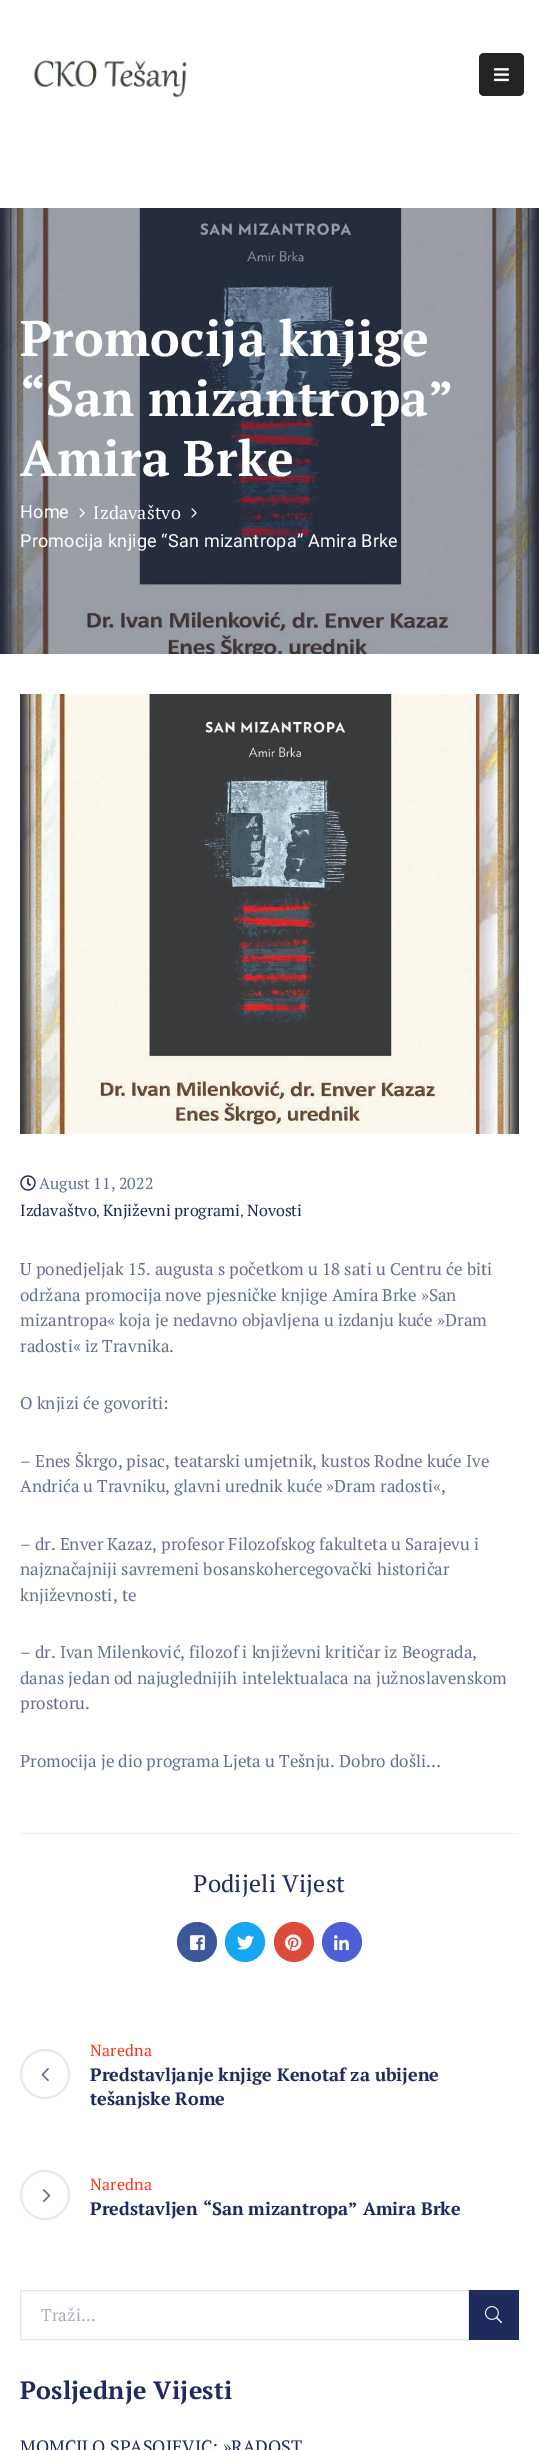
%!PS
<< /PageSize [539 2450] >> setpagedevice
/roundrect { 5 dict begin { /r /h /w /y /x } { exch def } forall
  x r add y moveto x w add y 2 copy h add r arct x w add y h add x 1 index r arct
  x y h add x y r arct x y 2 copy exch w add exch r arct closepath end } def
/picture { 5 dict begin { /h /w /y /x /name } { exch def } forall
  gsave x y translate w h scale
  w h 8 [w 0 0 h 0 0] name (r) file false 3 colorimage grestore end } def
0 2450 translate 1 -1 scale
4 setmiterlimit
1 setgray
0 0 539 2450 rectfill
(img1.rgb) 34 60 153 38 picture
0.141 setgray
479 53 45 43 5 roundrect fill
(img2.rgb) 494 68 15 14 picture
(img3.rgb) 0 208 539 446 picture
/PTSerif-Bold [50 0 0 -50 0 0] selectfont
1 setgray
20 356 moveto 0.2 0 (Promocija knjige) ashow
20 416 moveto 0.2 0 (“San mizantropa”) ashow
20 476 moveto 0.2 0 (Amira Brke) ashow
/Roboto-Regular [18 0 0 -18 0 0] selectfont
20 518 moveto 0.2 0 (Home) ashow
(img4.rgb) 79 508 6 10 picture
/PTSerif-Regular [18 0 0 -18 0 0] selectfont
93 519 moveto 0.2 0 (Izdavaštvo) ashow
(img5.rgb) 191 508 6 10 picture
/Roboto-Regular [18 0 0 -18 0 0] selectfont
20 547 moveto 0.2 0 (Promocija knjige “San mizantropa” Amira Brke) ashow
(img6.rgb) 20 694 499 440 picture
(img7.rgb) 20 1175 16 16 picture
/PTSerif-Regular [16 0 0 -16 0 0] selectfont
0.384 0.443 0.553 setrgbcolor
39 1189 moveto (August 11, 2022) show
0.125 0.169 0.365 setrgbcolor
20 1216 moveto (Izdavaštvo) show
/PTSerif-Regular [13 0 0 -13 0 0] selectfont
0.133 setgray
96 1216 moveto (‚) show
/PTSerif-Regular [16 0 0 -16 0 0] selectfont
0.125 0.169 0.365 setrgbcolor
103 1216 moveto (Književni programi) show
/PTSerif-Regular [13 0 0 -13 0 0] selectfont
0.133 setgray
240 1216 moveto (‚) show
/PTSerif-Regular [16 0 0 -16 0 0] selectfont
0.125 0.169 0.365 setrgbcolor
247 1216 moveto (Novosti) show
/PTSerif-Regular [17 0 0 -17 0 0] selectfont
0.384 0.443 0.553 setrgbcolor
20 1275 moveto (U ponedjeljak 15. augusta s početkom u 18 sati u Centru će biti) show
20 1301 moveto (održana promocija nove pjesničke knjige Amira Brke »San) show
20 1326 moveto (mizantropa« koja je nedavno objavljena u izdanju kuće »Dram) show
20 1352 moveto (radosti« iz Travnika.) show
20 1409 moveto (O knjizi će govoriti:) show
20 1467 moveto (– Enes Škrgo, pisac, teatarski umjetnik, kustos Rodne kuće Ive) show
20 1492 moveto (Andrića u Travniku, glavni urednik kuće »Dram radosti«,) show
20 1550 moveto (– dr. Enver Kazaz, profesor Filozofskog fakulteta u Sarajevu i) show
20 1575 moveto (najznačajniji savremeni bosanskohercegovački historičar) show
20 1601 moveto (književnosti, te) show
20 1658 moveto (– dr. Ivan Milenković, filozof i književni kritičar iz Beograda,) show
20 1684 moveto (danas jedan od najuglednijih intelektualaca na južnoslavenskom) show
20 1709 moveto (prostoru.) show
20 1767 moveto (Promocija je dio programa Ljeta u Tešnju. Dobro došli…) show
0.933 setgray
20 1833 499 1 rectfill
/PTSerif-Regular [24 0 0 -24 0 0] selectfont
0.125 0.169 0.365 setrgbcolor
193 1892 moveto 0.2 0 (Podijeli Vijest) ashow
0.231 0.349 0.596 setrgbcolor
newpath 197 1942 20 0 360 arc closepath fill
(img8.rgb) 190 1935 15 16 picture
0.094 0.651 0.941 setrgbcolor
newpath 245 1942 20 0 360 arc closepath fill
(img9.rgb) 237 1935 17 15 picture
0.867 0.294 0.224 setrgbcolor
newpath 294 1942 20 0 360 arc closepath fill
(img10.rgb) 285 1934 17 17 picture
0.298 0.373 0.843 setrgbcolor
newpath 342 1942 20 0 360 arc closepath fill
(img11.rgb) 334 1935 15 16 picture
0.918 setgray
2 setlinewidth
newpath 45 2074 24 0 360 arc closepath stroke
(img12.rgb) 41 2068 8 14 picture
/PTSerif-Regular [16 0 0 -16 0 0] selectfont
1 0.208 0.078 setrgbcolor
90 2056 moveto 0.2 0 (Naredna) ashow
/PTSerif-Bold [18 0 0 -18 0 0] selectfont
0.125 0.169 0.365 setrgbcolor
90 2081 moveto (Predstavljanje knjige Kenotaf za ubijene) show
90 2105 moveto (tešanjske Rome) show
0.918 setgray
newpath 45 2195 24 0 360 arc closepath stroke
(img13.rgb) 42 2189 9 14 picture
/PTSerif-Regular [16 0 0 -16 0 0] selectfont
1 0.208 0.078 setrgbcolor
90 2190 moveto 0.2 0 (Naredna) ashow
/PTSerif-Bold [18 0 0 -18 0 0] selectfont
0.125 0.169 0.365 setrgbcolor
90 2215 moveto (Predstavljen “San mizantropa” Amira Brke) show
0.898 setgray
1 setlinewidth
20.5 2290.5 448 49 rectstroke
/PTSerif-Regular [17 0 0 -17 0 0] selectfont
0.651 0.686 0.741 setrgbcolor
41 2321 moveto 0.2 0 (Traži...) ashow
0.125 0.169 0.365 setrgbcolor
469 2290 50 50 rectfill
(img14.rgb) 485 2306 17 18 picture
/PTSerif-Bold [25 0 0 -25 0 0] selectfont
20 2399 moveto 0.2 0 (Posljednje Vijesti) ashow
gsave
20 2439 499 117 rectclip
/PTSerif-Regular [18 0 0 -18 0 0] selectfont
20 2453 moveto (MOMČILO SPASOJEVIĆ: »RADOST) show
grestore
showpage
